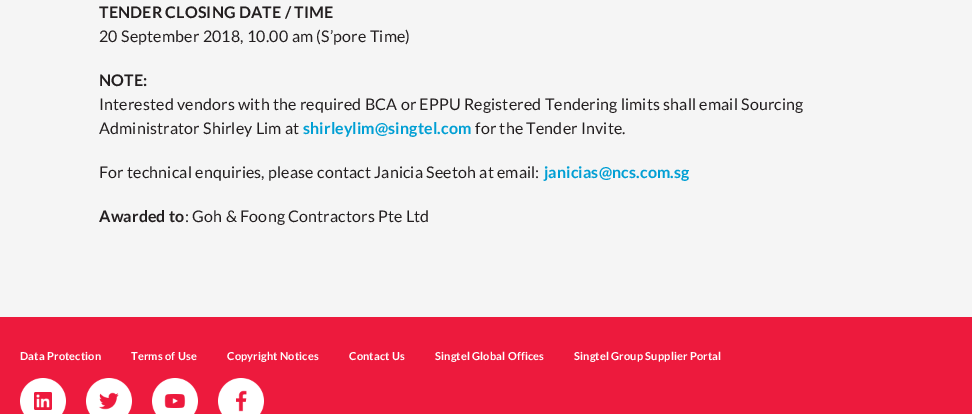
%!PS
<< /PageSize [972 414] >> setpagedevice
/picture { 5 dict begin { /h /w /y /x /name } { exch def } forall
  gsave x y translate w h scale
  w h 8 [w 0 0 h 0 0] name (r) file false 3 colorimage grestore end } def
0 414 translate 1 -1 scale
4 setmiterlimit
0.961 setgray
0 0 972 414 rectfill
/Lato-Bold [16 0 0 -16 0 0] selectfont
0.137 0.122 0.125 setrgbcolor
99 18 moveto 0.15 0 (TENDER CLOSING DATE / TIME) ashow
/Lato-Regular [16 0 0 -16 0 0] selectfont
99 42 moveto 0.15 0 (20 September 2018, 10.00 am \(S’pore Time\)) ashow
/Lato-Bold [16 0 0 -16 0 0] selectfont
99 86 moveto 0.15 0 (NOTE:) ashow
/Lato-Regular [16 0 0 -16 0 0] selectfont
99 110 moveto 0.15 0 (Interested vendors with the required BCA or EPPU Registered Tendering limits shall email Sourcing) ashow
99 134 moveto 0.15 0 (Administrator Shirley Lim at) ashow
/Lato-Bold [16 0 0 -16 0 0] selectfont
0 0.624 0.831 setrgbcolor
303 134 moveto 0.15 0 (shirleylim@singtel.com) ashow
/Lato-Regular [16 0 0 -16 0 0] selectfont
0.137 0.122 0.125 setrgbcolor
475 134 moveto 0.15 0 (for the Tender Invite.) ashow
99 178 moveto 0.15 0 (For technical enquiries, please contact Janicia Seetoh at email:) ashow
/Lato-Bold [16 0 0 -16 0 0] selectfont
0 0.624 0.831 setrgbcolor
544 178 moveto 0.15 0 (janicias@ncs.com.sg) ashow
0.137 0.122 0.125 setrgbcolor
99 222 moveto 0.15 0 (Awarded to) ashow
/Lato-Regular [16 0 0 -16 0 0] selectfont
185 222 moveto 0.15 0 (: Goh & Foong Contractors Pte Ltd) ashow
0.929 0.102 0.239 setrgbcolor
0 317 972 97 rectfill
/Lato-Bold [11 0 0 -11 0 0] selectfont
1 setgray
20 360 moveto 0.15 0 (Data Protection) ashow
131 360 moveto 0.15 0 (Terms of Use) ashow
227 360 moveto 0.15 0 (Copyright Notices) ashow
349 360 moveto 0.15 0 (Contact Us) ashow
435 360 moveto 0.15 0 (Singtel Global Offices) ashow
574 360 moveto 0.15 0 (Singtel Group Supplier Portal) ashow
(img1.rgb) 20 378 46 36 picture
(img2.rgb) 86 378 46 36 picture
(img3.rgb) 152 378 46 36 picture
(img4.rgb) 218 378 46 36 picture
showpage
